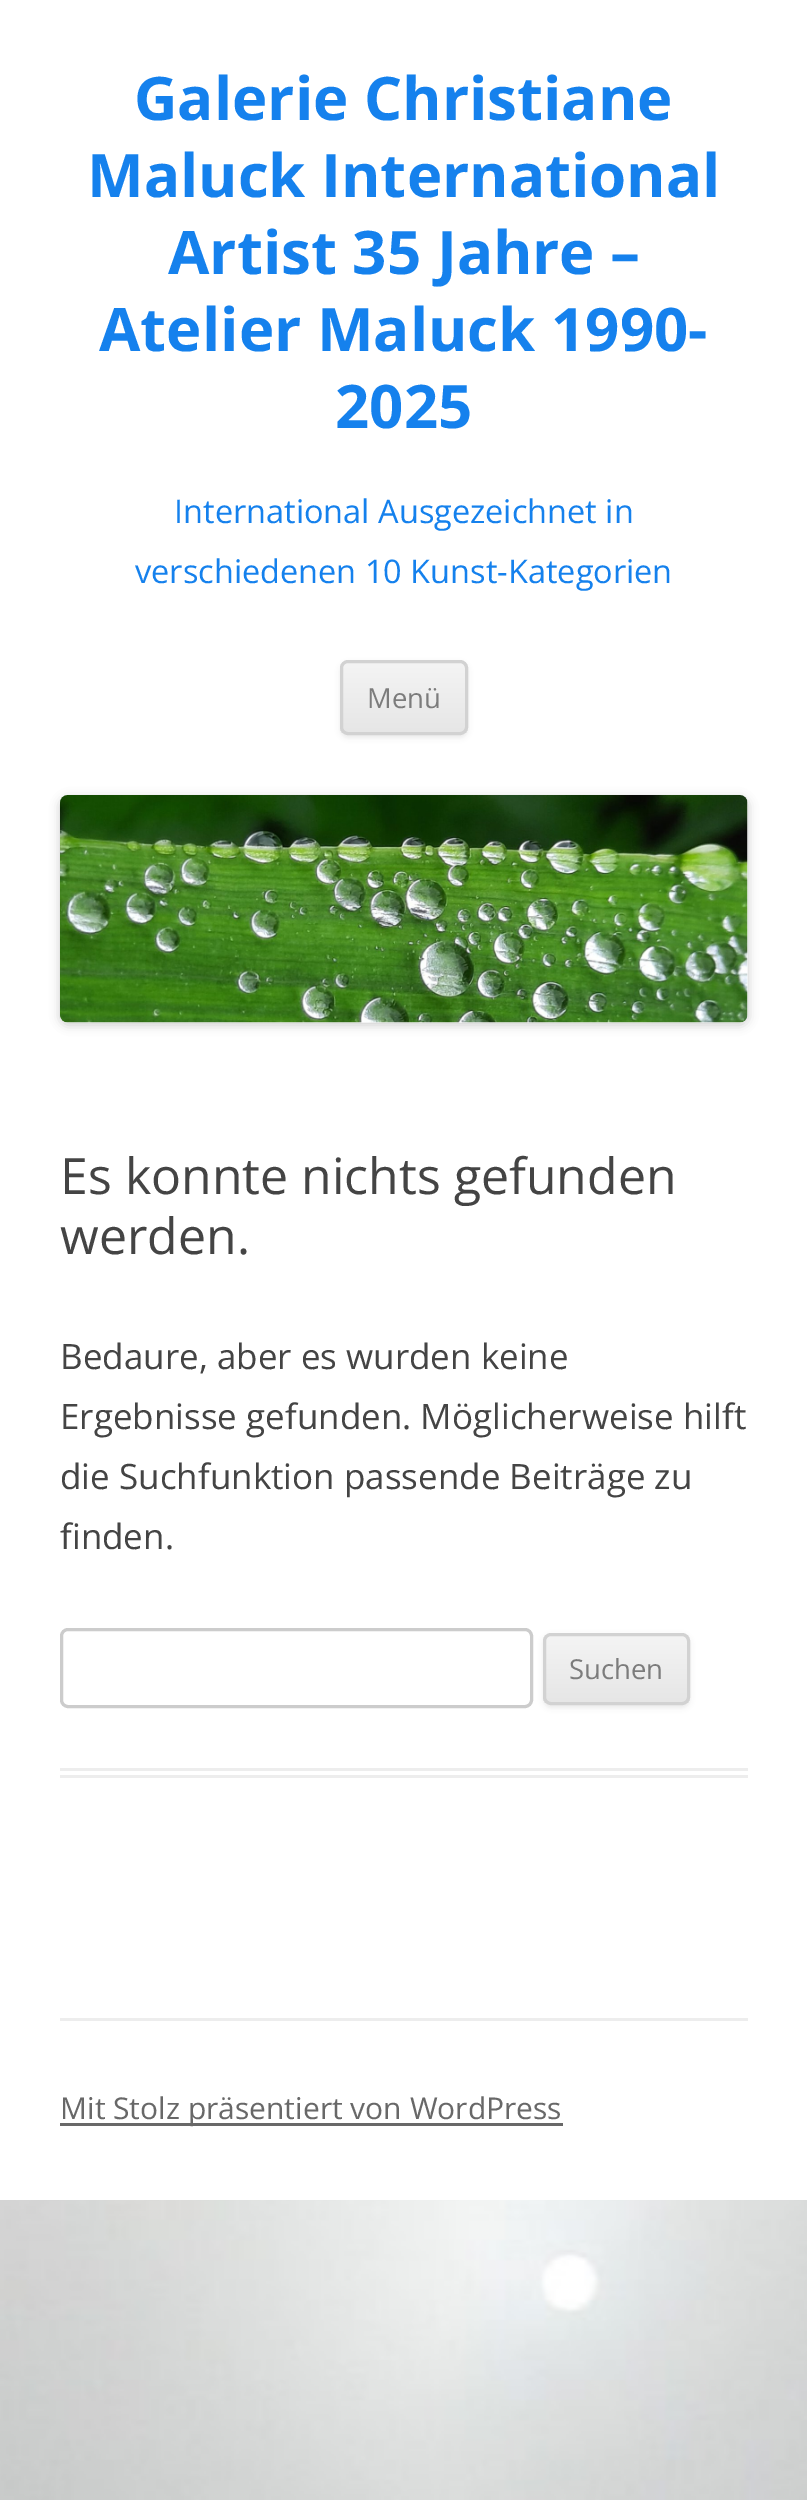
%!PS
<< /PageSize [807 2500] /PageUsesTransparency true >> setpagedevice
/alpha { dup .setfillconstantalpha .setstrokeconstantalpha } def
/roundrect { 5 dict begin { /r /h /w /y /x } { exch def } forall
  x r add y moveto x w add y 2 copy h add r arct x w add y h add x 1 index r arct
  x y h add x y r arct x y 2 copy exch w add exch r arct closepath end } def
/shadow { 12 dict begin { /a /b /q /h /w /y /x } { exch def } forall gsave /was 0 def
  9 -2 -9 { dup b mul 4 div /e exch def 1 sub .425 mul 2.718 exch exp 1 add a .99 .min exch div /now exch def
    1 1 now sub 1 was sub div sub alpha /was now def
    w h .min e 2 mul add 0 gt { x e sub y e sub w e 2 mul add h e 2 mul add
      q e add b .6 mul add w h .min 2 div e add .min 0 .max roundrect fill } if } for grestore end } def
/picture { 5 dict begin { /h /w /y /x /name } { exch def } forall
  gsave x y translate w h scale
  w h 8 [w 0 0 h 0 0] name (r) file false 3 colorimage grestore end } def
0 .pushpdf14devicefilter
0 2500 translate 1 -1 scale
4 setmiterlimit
1 setgray
0 0 807 2500 rectfill
(img1.rgb) 0 2200 807 300 picture
/OpenSans-Bold [60 0 0 -60 0 0] selectfont
0.082 0.506 0.929 setrgbcolor
134 120 moveto (Galerie Christiane) show
87 197 moveto (Maluck International) show
168 274 moveto (Artist 35 Jahre –) show
99 351 moveto (Atelier Maluck 1990-) show
335 428 moveto (2025) show
/OpenSans-Regular [32.5 0 0 -32.5 0 0] selectfont
174 523 moveto (International Ausgezeichnet in) show
135 583 moveto (verschiedenen 10 Kunst-Kategorien) show
0.251 setgray
340 663 128 75 8 2.5 0.1 shadow
gsave
340 660 128 75 8 roundrect clip newpath
gsave newpath 340 663 moveto 468 663 lineto 468 733 lineto 340 733 lineto closepath clip newpath
<< /ShadingType 2 /ColorSpace /DeviceRGB /Coords [404 663 404 733] /Extend [true true] /Function << /FunctionType 2 /Domain [0 1] /C0 [0.957 0.957 0.957] /C1 [0.902 0.902 0.902] /N 1 >> >> shfill grestore
grestore
0.824 setgray
3 setlinewidth
341.5 661.5 125 72 6.5 roundrect stroke
/OpenSans-Regular [27.5 0 0 -27.5 0 0] selectfont
0.486 setgray
367 708 moveto (Menü) show
0 setgray
60 798 688 227 8 5 0.2 shadow
(img2.rgb) 60 795 688 228 picture
0.929 setgray
60 1768 688 3 rectfill
60 1775 688 3 rectfill
/OpenSans-Regular [50 0 0 -50 0 0] selectfont
0.267 setgray
60 1194 moveto (Es konnte nichts gefunden) show
60 1254 moveto (werden.) show
/OpenSans-Regular [35 0 0 -35 0 0] selectfont
60 1369 moveto (Bedaure, aber es wurden keine) show
60 1429 moveto (Ergebnisse gefunden. Möglicherweise hilft) show
60 1489 moveto (die Suchfunktion passende Beiträge zu) show
60 1549 moveto (finden.) show
0.8 setgray
61.5 1629.5 470 77 6.5 roundrect stroke
0.251 setgray
543 1635 147 73 8 2.5 0.1 shadow
gsave
543 1633 147 72 8 roundrect clip newpath
gsave newpath 543 1635 moveto 690 1635 lineto 690 1703 lineto 543 1703 lineto closepath clip newpath
<< /ShadingType 2 /ColorSpace /DeviceRGB /Coords [616 1635 616 1703] /Extend [true true] /Function << /FunctionType 2 /Domain [0 1] /C0 [0.957 0.957 0.957] /C1 [0.902 0.902 0.902] /N 1 >> >> shfill grestore
grestore
0.824 setgray
544.5 1634.5 144 69 6.5 roundrect stroke
/OpenSans-Regular [27.5 0 0 -27.5 0 0] selectfont
0.486 setgray
569 1679 moveto (Suchen) show
0.929 setgray
60 2018 688 3 rectfill
0.408 setgray
60 2123 503 3 rectfill
/OpenSans-Regular [30 0 0 -30 0 0] selectfont
60 2119 moveto (Mit Stolz präsentiert von WordPress) show
.poppdf14devicefilter showpage
